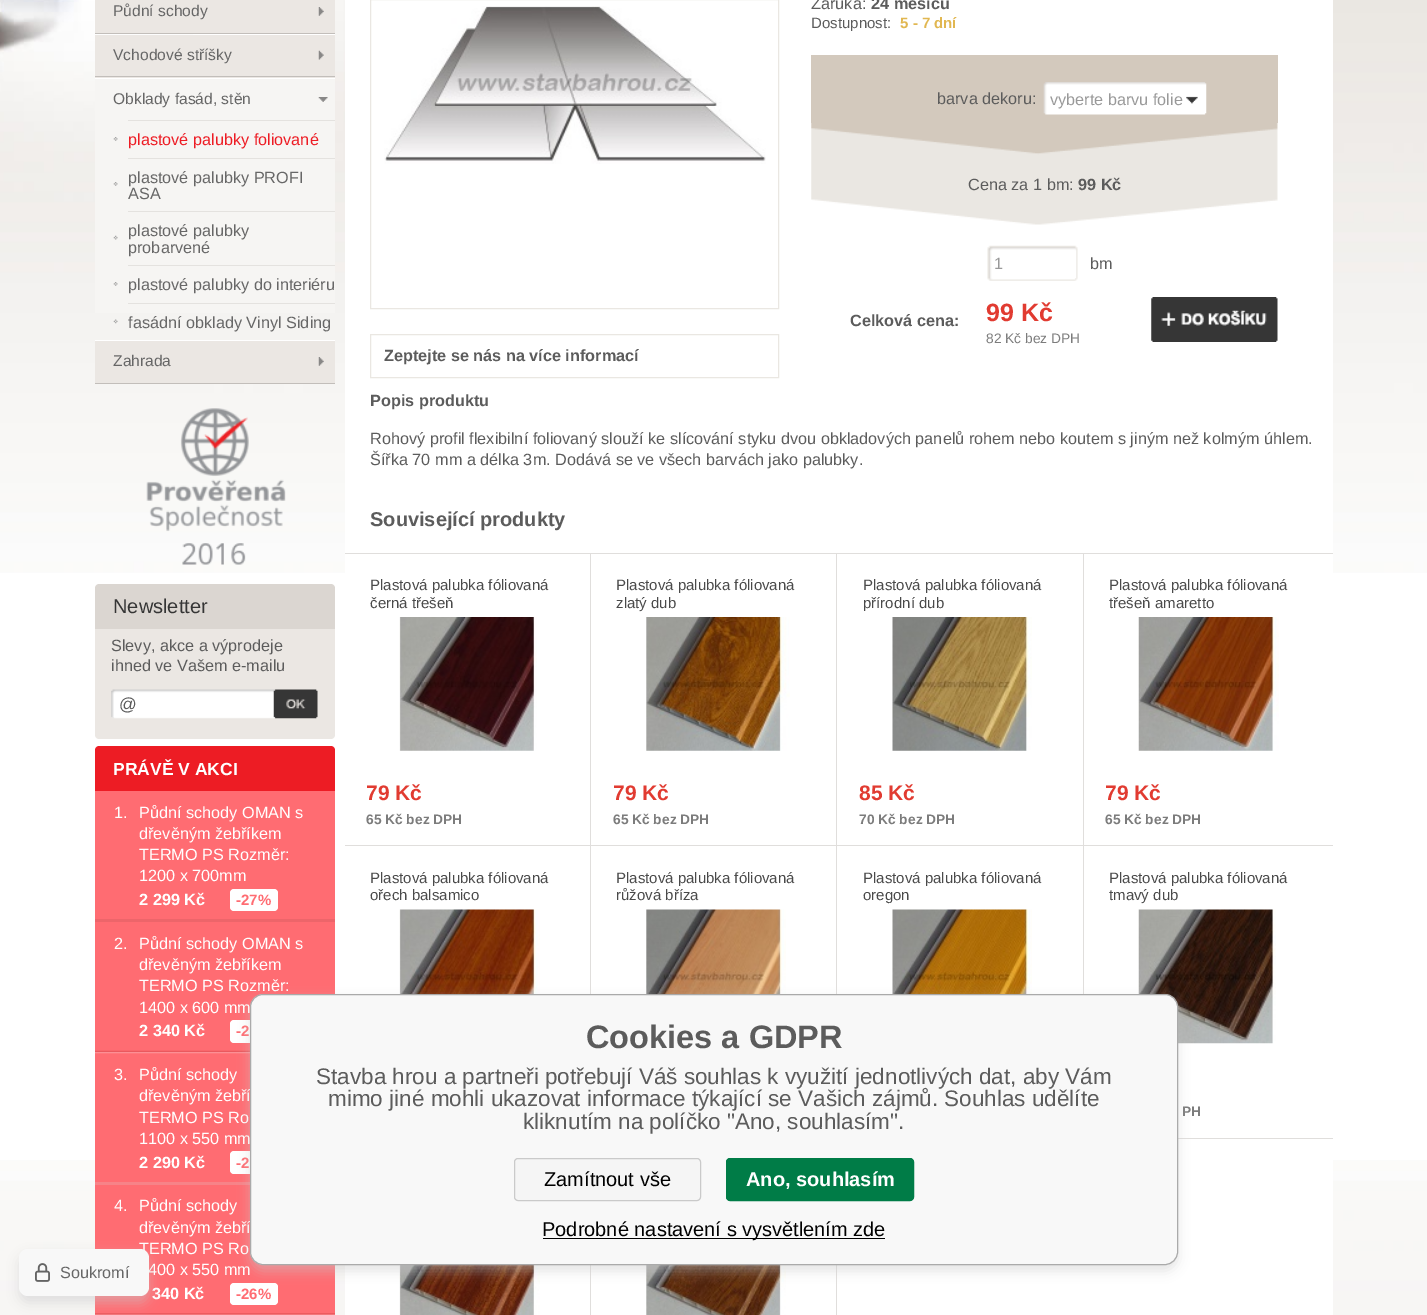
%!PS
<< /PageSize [1427 1315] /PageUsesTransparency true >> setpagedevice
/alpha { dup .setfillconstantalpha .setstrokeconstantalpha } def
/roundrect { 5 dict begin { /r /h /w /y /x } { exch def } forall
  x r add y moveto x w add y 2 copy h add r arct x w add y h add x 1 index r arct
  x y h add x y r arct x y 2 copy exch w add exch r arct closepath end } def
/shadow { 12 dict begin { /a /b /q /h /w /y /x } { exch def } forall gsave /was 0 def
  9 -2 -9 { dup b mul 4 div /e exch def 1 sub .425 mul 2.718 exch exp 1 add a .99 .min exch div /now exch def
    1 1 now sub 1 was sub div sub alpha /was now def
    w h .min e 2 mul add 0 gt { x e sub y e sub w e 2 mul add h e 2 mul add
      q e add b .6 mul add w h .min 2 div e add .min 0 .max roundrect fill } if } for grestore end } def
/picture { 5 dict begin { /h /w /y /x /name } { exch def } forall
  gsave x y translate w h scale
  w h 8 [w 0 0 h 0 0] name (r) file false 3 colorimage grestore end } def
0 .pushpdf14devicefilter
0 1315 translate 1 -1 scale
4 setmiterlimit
1 setgray
0 0 1427 1315 rectfill
(img1.rgb) 0 0 1427 573 picture
(img2.rgb) 0 1160 1427 155 picture
0.922 0.906 0.89 setrgbcolor
95 0 240 33 rectfill
(img3.rgb) 318 7 6 9 picture
0.761 0.745 0.729 setrgbcolor
95 33 240 1 rectfill
/LiberationSans-Regular [15.6 0 0 -15.6 0 0] selectfont
0.404 setgray
113 16 moveto (Půdní schody) show
0.922 0.906 0.89 setrgbcolor
95 35 240 43 rectfill
(img4.rgb) 318 50 6 10 picture
1 setgray
193 34 142 1 rectfill
0.761 0.745 0.729 setrgbcolor
95 76 240 1 rectfill
0.404 setgray
113 60 moveto (Vchodové stříšky) show
0.965 0.961 0.953 setrgbcolor
95 79 240 234 rectfill
(img5.rgb) 318 97 10 5 picture
1 setgray
95 78 240 1 rectfill
0.404 setgray
113 104 moveto (Obklady fasád, stěn) show
(img6.rgb) 113 137 5 4 picture
0.894 0.886 0.875 setrgbcolor
128 120 207 1 rectfill
/LiberationSans-Regular [16.25 0 0 -16.25 0 0] selectfont
0.929 0.11 0.141 setrgbcolor
128 145 moveto (plastové palubky foliované) show
(img6.rgb) 113 182 5 4 picture
0.894 0.886 0.875 setrgbcolor
128 158 207 1 rectfill
0.404 setgray
128 183 moveto (plastové palubky PROFI) show
128 199 moveto (ASA) show
(img7.rgb) 113 235 5 5 picture
0.894 0.886 0.875 setrgbcolor
128 211 207 1 rectfill
0.404 setgray
128 236 moveto (plastové palubky) show
128 253 moveto (probarvené) show
(img6.rgb) 113 282 5 4 picture
0.894 0.886 0.875 setrgbcolor
128 265 207 1 rectfill
0.404 setgray
128 290 moveto (plastové palubky do interiéru) show
(img8.rgb) 113 319 5 5 picture
0.894 0.886 0.875 setrgbcolor
128 303 207 1 rectfill
0.404 setgray
128 328 moveto (fasádní obklady Vinyl Siding) show
0.922 0.906 0.89 setrgbcolor
95 341 240 42 rectfill
(img3.rgb) 318 357 6 9 picture
1 setgray
95 340 240 1 rectfill
0.761 0.745 0.729 setrgbcolor
95 383 240 1 rectfill
/LiberationSans-Regular [15.6 0 0 -15.6 0 0] selectfont
0.404 setgray
113 366 moveto (Zahrada) show
(img9.rgb) 146 408 140 157 picture
0.859 0.839 0.82 setrgbcolor
newpath 99 584 moveto 331 584 lineto 333 584 335 586 335 588 curveto 335 629 lineto 95 629 lineto 95 588 lineto 95 586 97 584 99 584 curveto closepath fill
/LiberationSans-Regular [20 0 0 -20 0 0] selectfont
0.208 setgray
113 613 moveto (Newsletter) show
0.922 0.906 0.89 setrgbcolor
newpath 95 629 moveto 335 629 lineto 335 735 lineto 335 737 333 739 331 739 curveto 99 739 lineto 97 739 95 737 95 735 curveto closepath fill
/LiberationSans-Regular [16.25 0 0 -16.25 0 0] selectfont
0.361 setgray
111 651 moveto (Slevy, akce a výprodeje) show
111 671 moveto (ihned ve Vašem e-mailu) show
(img10.rgb) 111 689 164 30 picture
/LiberationSans-Regular [17.5 0 0 -17.5 0 0] selectfont
119 710 moveto (@) show
(img11.rgb) 273 689 45 30 picture
0.929 0.11 0.141 setrgbcolor
newpath 99 746 moveto 331 746 lineto 333 746 335 748 335 750 curveto 335 791 lineto 95 791 lineto 95 750 lineto 95 748 97 746 99 746 curveto closepath fill
/LiberationSans-Bold [17.5 0 0 -17.5 0 0] selectfont
1 setgray
113 775 moveto (PRÁVĚ V AKCI) show
1 0.424 0.447 setrgbcolor
95 791 240 523 rectfill
0.929 0.396 0.416 setrgbcolor
95 919 240 3 rectfill
/LiberationSans-Regular [16.25 0 0 -16.25 0 0] selectfont
1 setgray
114 818 moveto (1.) show
139 818 moveto (Půdní schody OMAN s) show
139 839 moveto (dřevěným žebříkem) show
139 860 moveto (TERMO PS Rozměr:) show
139 881 moveto (1200 x 700mm) show
/LiberationSans-Bold [16.25 0 0 -16.25 0 0] selectfont
139 905 moveto (2 299 Kč) show
230 889 48 22 4 roundrect fill
/LiberationSans-Bold [15 0 0 -15 0 0] selectfont
1 0.424 0.447 setrgbcolor
236 905 moveto (-27%) show
(img12.rgb) 95 1050 155 4 picture
/LiberationSans-Regular [16.25 0 0 -16.25 0 0] selectfont
1 setgray
114 949 moveto (2.) show
139 949 moveto (Půdní schody OMAN s) show
139 970 moveto (dřevěným žebříkem) show
139 991 moveto (TERMO PS Rozměr:) show
139 1013 moveto (1400 x 600 mm) show
/LiberationSans-Bold [16.25 0 0 -16.25 0 0] selectfont
139 1036 moveto (2 340 Kč) show
230 1020 48 23 4 roundrect fill
/LiberationSans-Bold [15 0 0 -15 0 0] selectfont
1 0.424 0.447 setrgbcolor
236 1036 moveto (-2) show
0.969 0.514 0.533 setrgbcolor
95 1182 155 3 rectfill
/LiberationSans-Regular [16.25 0 0 -16.25 0 0] selectfont
1 setgray
114 1080 moveto (3.) show
139 1080 moveto (Půdní schody) show
139 1101 moveto (dřevěným žebří) show
139 1123 moveto (TERMO PS Ro) show
139 1144 moveto (1100 x 550 mm) show
/LiberationSans-Bold [16.25 0 0 -16.25 0 0] selectfont
139 1168 moveto (2 290 Kč) show
230 1151 48 23 4 roundrect fill
/LiberationSans-Bold [15 0 0 -15 0 0] selectfont
1 0.424 0.447 setrgbcolor
236 1168 moveto (-2) show
(img13.rgb) 95 1313 240 2 picture
/LiberationSans-Regular [16.25 0 0 -16.25 0 0] selectfont
1 setgray
114 1211 moveto (4.) show
139 1211 moveto (Půdní schody) show
139 1233 moveto (dřevěným žebří) show
139 1254 moveto (TERMO PS Ro) show
148 1275 moveto (400 x 550 mm) show
/LiberationSans-Bold [16.25 0 0 -16.25 0 0] selectfont
152 1299 moveto (340 Kč) show
230 1283 48 22 4 roundrect fill
/LiberationSans-Bold [15 0 0 -15 0 0] selectfont
1 0.424 0.447 setrgbcolor
236 1299 moveto (-26%) show
1 setgray
345 0 988 1315 rectfill
0.918 0.906 0.886 setrgbcolor
370.5 -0.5 408 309 rectstroke
(img14.rgb) 384 6 382 158 picture
/LiberationSans-Regular [16.25 0 0 -16.25 0 0] selectfont
0.361 setgray
811 9 moveto (Záruka:) show
/LiberationSans-Bold [16.25 0 0 -16.25 0 0] selectfont
871 9 moveto (24 měsíců) show
/LiberationSans-Regular [15 0 0 -15 0 0] selectfont
811 28 moveto (Dostupnost:) show
/LiberationSans-Bold [15 0 0 -15 0 0] selectfont
0.882 0.718 0.318 setrgbcolor
900 28 moveto (5 - 7 dní) show
0.827 0.788 0.741 setrgbcolor
811 55 467 68 rectfill
/LiberationSans-Regular [16.25 0 0 -16.25 0 0] selectfont
0.361 setgray
937 104 moveto (barva dekoru:) show
(img15.rgb) 1043 82 164 33 picture
0.6 setgray
1050 105 moveto (vyberte barvu folie) show
(img16.rgb) 811 123 467 102 picture
0.361 setgray
968 190 moveto (Cena za 1 bm:) show
/LiberationSans-Bold [16.25 0 0 -16.25 0 0] selectfont
1078 190 moveto (99 Kč) show
(img17.rgb) 987 245 91 36 picture
/LiberationSans-Regular [16.25 0 0 -16.25 0 0] selectfont
0.6 setgray
994 269 moveto (1) show
0.361 setgray
1090 269 moveto (bm) show
/LiberationSans-Bold [16.25 0 0 -16.25 0 0] selectfont
850 326 moveto (Celková cena:) show
/LiberationSans-Bold [25 0 0 -25 0 0] selectfont
0.882 0.231 0.192 setrgbcolor
986 321 moveto (99 Kč) show
/LiberationSans-Regular [13.75 0 0 -13.75 0 0] selectfont
0.486 setgray
986 343 moveto (82 Kč bez DPH) show
(img18.rgb) 1151 297 127 45 picture
0.918 0.906 0.886 setrgbcolor
370.5 334.5 408 43 rectstroke
/LiberationSans-Bold [16.25 0 0 -16.25 0 0] selectfont
0.361 setgray
384 361 moveto (Zeptejte se nás na více informací) show
370 406 moveto (Popis produktu) show
/LiberationSans-Regular [16.25 0 0 -16.25 0 0] selectfont
370 444 moveto (Rohový profil flexibilní foliovaný slouží ke slícování styku dvou obkladových panelů rohem nebo koutem s jiným než kolmým úhlem.) show
370 465 moveto (Šířka 70 mm a délka 3m. Dodává se ve všech barvách jako palubky.) show
/LiberationSans-Bold [20 0 0 -20 0 0] selectfont
370 526 moveto (Související produkty) show
0.878 0.871 0.863 setrgbcolor
345 553 988 1 rectfill
590 554 1 291 rectfill
/LiberationSans-Regular [15 0 0 -15 0 0] selectfont
0.29 setgray
370 590 moveto (Plastová palubka fóliovaná) show
370 608 moveto (černá třešeň) show
(img19.rgb) 399 617 138 134 picture
/LiberationSans-Bold [21 0 0 -21 0 0] selectfont
0.882 0.231 0.192 setrgbcolor
366 800 moveto (79 Kč) show
/LiberationSans-Bold [13.75 0 0 -13.75 0 0] selectfont
0.486 setgray
366 824 moveto (65 Kč bez DPH) show
0.878 0.871 0.863 setrgbcolor
836 554 1 291 rectfill
/LiberationSans-Regular [15 0 0 -15 0 0] selectfont
0.29 setgray
616 590 moveto (Plastová palubka fóliovaná) show
616 608 moveto (zlatý dub) show
(img20.rgb) 646 617 144 134 picture
/LiberationSans-Bold [21 0 0 -21 0 0] selectfont
0.882 0.231 0.192 setrgbcolor
613 800 moveto (79 Kč) show
/LiberationSans-Bold [13.75 0 0 -13.75 0 0] selectfont
0.486 setgray
613 824 moveto (65 Kč bez DPH) show
0.878 0.871 0.863 setrgbcolor
1083 554 1 291 rectfill
/LiberationSans-Regular [15 0 0 -15 0 0] selectfont
0.29 setgray
863 590 moveto (Plastová palubka fóliovaná) show
863 608 moveto (přírodní dub) show
(img21.rgb) 892 617 140 134 picture
/LiberationSans-Bold [21 0 0 -21 0 0] selectfont
0.882 0.231 0.192 setrgbcolor
859 800 moveto (85 Kč) show
/LiberationSans-Bold [13.75 0 0 -13.75 0 0] selectfont
0.486 setgray
859 824 moveto (70 Kč bez DPH) show
/LiberationSans-Regular [15 0 0 -15 0 0] selectfont
0.29 setgray
1109 590 moveto (Plastová palubka fóliovaná) show
1109 608 moveto (třešeň amaretto) show
(img22.rgb) 1138 617 141 134 picture
/LiberationSans-Bold [21 0 0 -21 0 0] selectfont
0.882 0.231 0.192 setrgbcolor
1105 800 moveto (79 Kč) show
/LiberationSans-Bold [13.75 0 0 -13.75 0 0] selectfont
0.486 setgray
1105 824 moveto (65 Kč bez DPH) show
0.878 0.871 0.863 setrgbcolor
345 845 988 1 rectfill
590 846 1 148 rectfill
/LiberationSans-Regular [15 0 0 -15 0 0] selectfont
0.29 setgray
370 883 moveto (Plastová palubka fóliovaná) show
370 900 moveto (ořech balsamico) show
(img23.rgb) 399 909 141 85 picture
0.878 0.871 0.863 setrgbcolor
836 846 1 148 rectfill
0.29 setgray
616 883 moveto (Plastová palubka fóliovaná) show
616 900 moveto (růžová bříza) show
(img24.rgb) 646 909 140 85 picture
0.878 0.871 0.863 setrgbcolor
1083 846 1 148 rectfill
0.29 setgray
863 883 moveto (Plastová palubka fóliovaná) show
863 900 moveto (oregon) show
(img25.rgb) 892 909 140 85 picture
1109 883 moveto (Plastová palubka fóliovaná) show
1109 900 moveto (tmavý dub) show
(img26.rgb) 1138 909 138 135 picture
/LiberationSans-Bold [13.75 0 0 -13.75 0 0] selectfont
0.486 setgray
1182 1116 moveto (PH) show
0.878 0.871 0.863 setrgbcolor
1178 1138 155 1 rectfill
590 1265 1 50 rectfill
(img27.rgb) 399 1265 141 50 picture
836 1265 1 50 rectfill
(img28.rgb) 646 1265 140 50 picture
0.784 setgray
250 1000 928 271 13 6 0.5 shadow
0.973 setgray
250.5 994.5 927 270 12.5 roundrect gsave fill grestore
0.667 setgray
stroke
/LiberationSans-Bold [32.5 0 0 -32.5 0 0] selectfont
0.361 setgray
586 1048 moveto (Cookies a GDPR) show
/LiberationSans-Regular [22.5 0 0 -22.5 0 0] selectfont
316 1084 moveto (Stavba hrou a partneři potřebují Váš souhlas k využití jednotlivých dat, aby Vám) show
328 1106 moveto (mimo jiné mohli ukazovat informace týkající se Vašich zájmů. Souhlas udělíte) show
523 1129 moveto (kliknutím na políčko "Ano, souhlasím".) show
0.961 setgray
514.5 1158.5 186 42 3.5 roundrect gsave fill grestore
0.792 setgray
stroke
/LiberationSans-Regular [20 0 0 -20 0 0] selectfont
0 setgray
544 1186 moveto (Zamítnout vše) show
0 0.486 0.278 setrgbcolor
726.5 1158.5 187 42 3.5 roundrect gsave fill grestore
stroke
/LiberationSans-Bold [20 0 0 -20 0 0] selectfont
1 setgray
746 1186 moveto (Ano, souhlasím) show
0 setgray
543 1238 342 1 rectfill
/LiberationSans-Regular [20 0 0 -20 0 0] selectfont
542 1236 moveto (Podrobné nastavení s vysvětlením zde) show
0.784 setgray
19 1255 130 48 9 6 0.5 shadow
0.973 setgray
19 1249 130 47 9 roundrect fill
(img29.rgb) 35 1263 15 19 picture
/LiberationSans-Regular [16.25 0 0 -16.25 0 0] selectfont
0.404 setgray
60 1278 moveto (Soukromí) show
.poppdf14devicefilter showpage
